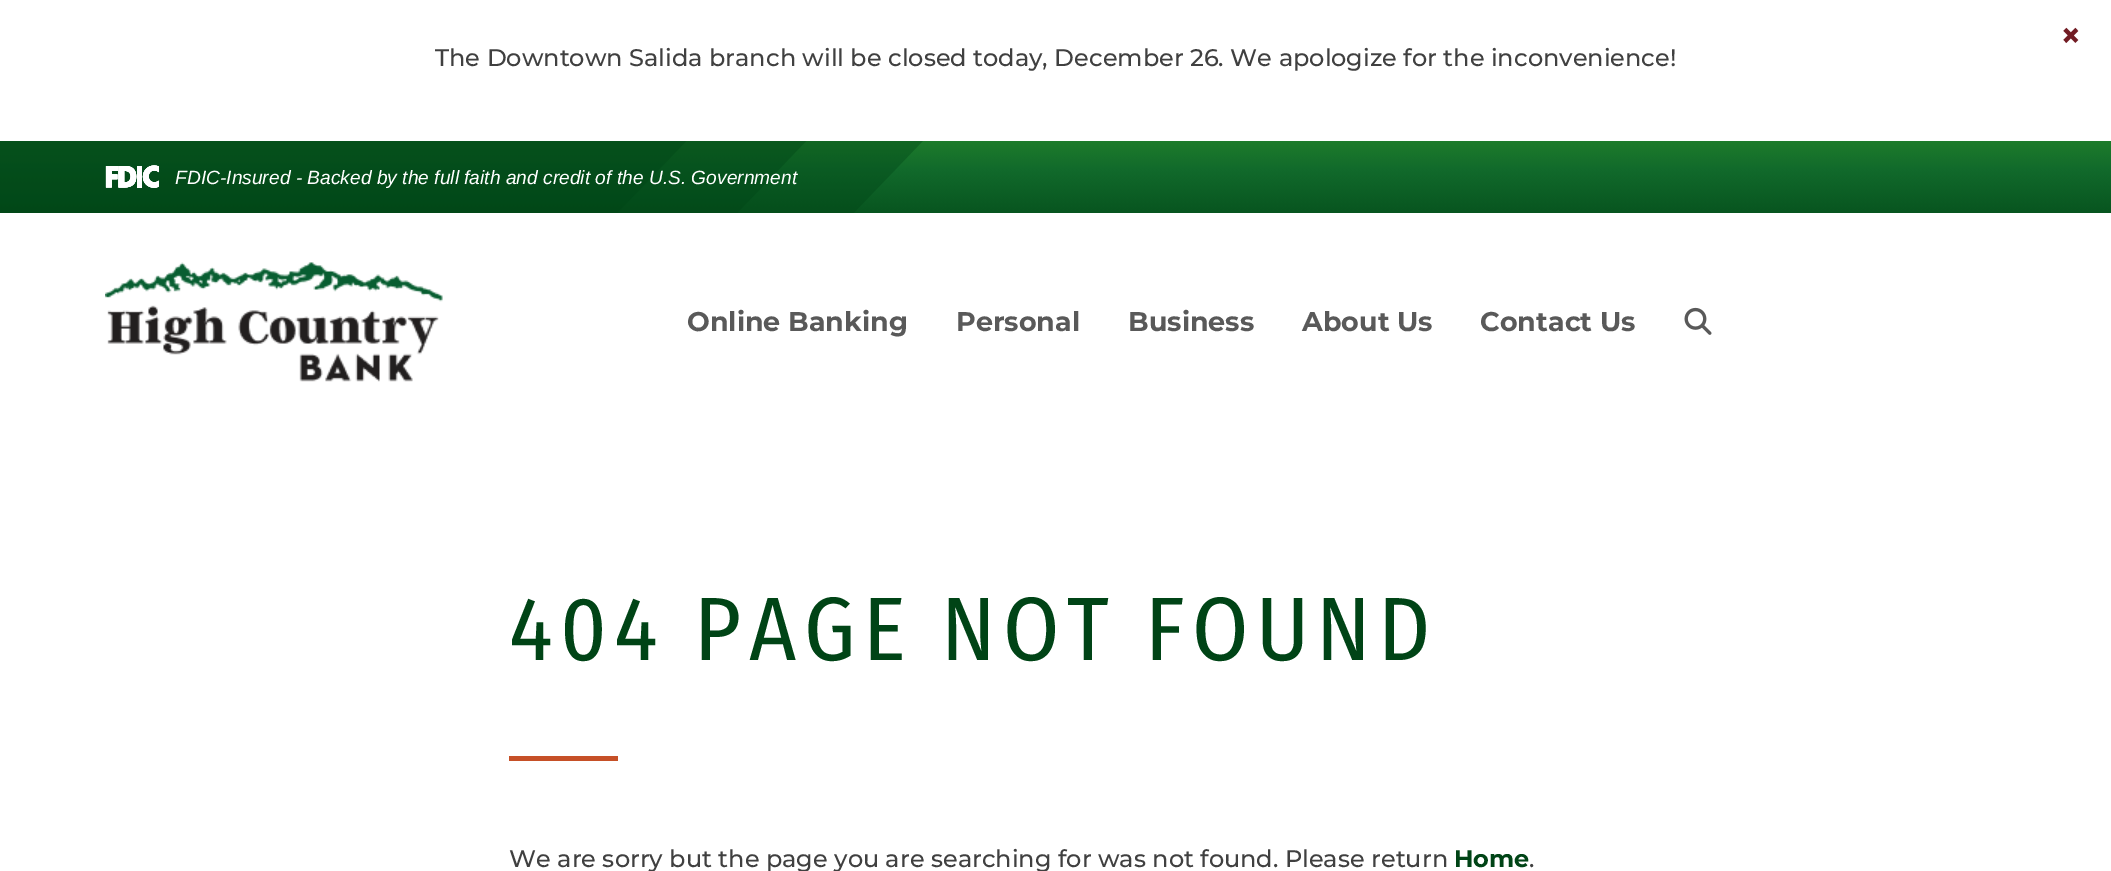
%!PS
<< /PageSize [2111 871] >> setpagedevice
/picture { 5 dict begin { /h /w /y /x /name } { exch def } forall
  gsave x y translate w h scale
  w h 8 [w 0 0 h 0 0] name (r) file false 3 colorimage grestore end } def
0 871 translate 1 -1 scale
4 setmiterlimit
1 setgray
0 0 2111 871 rectfill
/Montserrat-Bold [36 0 0 -36 0 0] selectfont
0.447 0.11 0.141 setrgbcolor
2060 48 moveto (×) show
/Montserrat-Medium [24 0 0 -24 0 0] selectfont
0.251 setgray
435 66 moveto (The Downtown Salida branch will be closed today, December 26. We apologize for the inconvenience!) show
(img1.rgb) 0 141 2111 72 picture
(img2.rgb) 105 165 54 23 picture
/LiberationSans-Italic [19.2 0 0 -19.2 0 0] selectfont
1 setgray
175 184 moveto (FDIC-Insured - Backed by the full faith and credit of the U.S. Government) show
(img3.rgb) 105 262 338 120 picture
/Montserrat-Bold [27 0 0 -27 0 0] selectfont
0.349 setgray
687 331 moveto (Online Banking) show
956 331 moveto (Personal) show
1128 331 moveto (Business) show
1302 331 moveto (About Us) show
1480 331 moveto (Contact Us) show
(img4.rgb) 1684 307 28 28 picture
/FiraSansCondensed-Regular [90 0 0 -90 0 0] selectfont
0 0.267 0.086 setrgbcolor
509 660 moveto 7.5 0 (404 PAGE NOT FOUND) ashow
0.776 0.314 0.153 setrgbcolor
509 756 109 5 rectfill
/Montserrat-Medium [24 0 0 -24 0 0] selectfont
0.251 setgray
509 867 moveto (We are sorry but the page you are searching for was not found. Please return) show
/Montserrat-Bold [24 0 0 -24 0 0] selectfont
0 0.267 0.086 setrgbcolor
1454 867 moveto (Home) show
/Montserrat-Medium [24 0 0 -24 0 0] selectfont
0.251 setgray
1529 867 moveto (.) show
showpage
